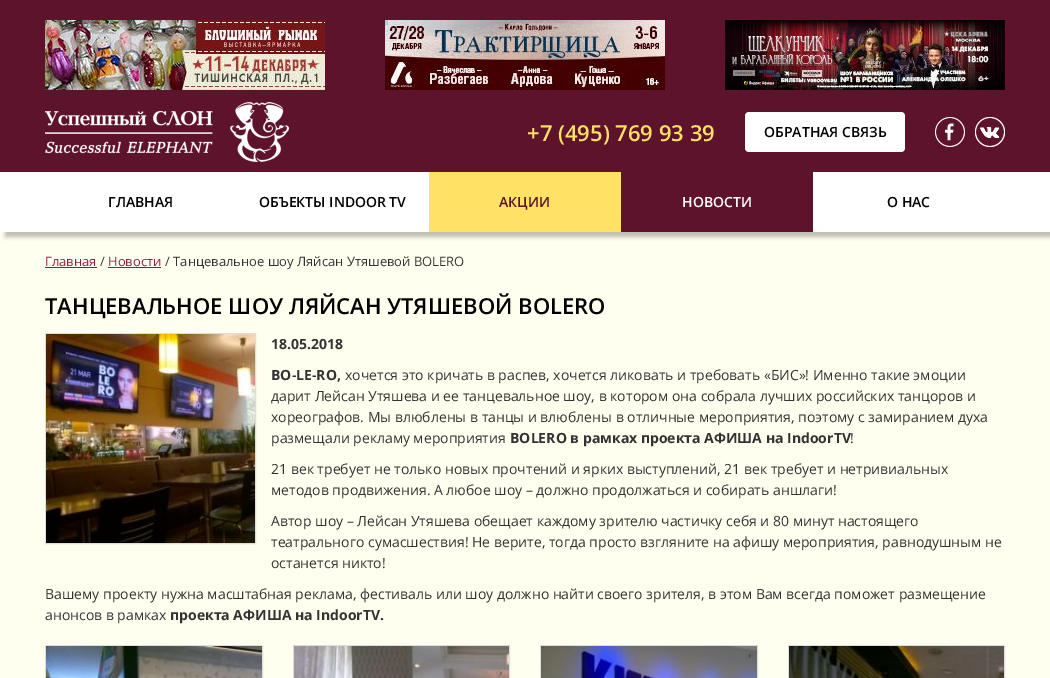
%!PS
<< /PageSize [1050 678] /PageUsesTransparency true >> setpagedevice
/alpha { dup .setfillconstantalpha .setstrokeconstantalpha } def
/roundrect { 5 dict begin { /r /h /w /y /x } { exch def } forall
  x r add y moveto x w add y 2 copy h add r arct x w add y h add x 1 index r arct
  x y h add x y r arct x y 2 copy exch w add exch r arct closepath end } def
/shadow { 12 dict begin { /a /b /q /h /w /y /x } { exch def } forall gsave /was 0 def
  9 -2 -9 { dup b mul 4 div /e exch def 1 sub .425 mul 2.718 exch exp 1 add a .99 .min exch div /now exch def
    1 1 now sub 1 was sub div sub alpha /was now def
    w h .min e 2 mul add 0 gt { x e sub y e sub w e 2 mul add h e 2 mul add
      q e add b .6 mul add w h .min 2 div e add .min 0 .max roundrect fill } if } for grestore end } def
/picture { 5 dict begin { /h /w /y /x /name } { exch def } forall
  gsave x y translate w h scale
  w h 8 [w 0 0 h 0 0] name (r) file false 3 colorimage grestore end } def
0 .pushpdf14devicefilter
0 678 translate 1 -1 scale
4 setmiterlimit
1 1 0.941 setrgbcolor
0 0 1050 678 rectfill
0.369 0.075 0.173 setrgbcolor
0 0 1050 172 rectfill
(img1.rgb) 45 20 280 70 picture
(img2.rgb) 385 20 280 70 picture
(img3.rgb) 725 20 280 70 picture
(img4.rgb) 45 102 244 60 picture
/OpenSans-SemiBold [22 0 0 -22 0 0] selectfont
1 0.882 0.4 setrgbcolor
527 141 moveto (+7 \(495\) 769 93 39) show
1 setgray
745 112 160 40 4 roundrect fill
/OpenSans-SemiBold [14 0 0 -14 0 0] selectfont
0 setgray
764 137 moveto (ОБРАТНАЯ СВЯЗЬ) show
(img5.rgb) 935 117 30 30 picture
(img6.rgb) 975 117 30 30 picture
5 177 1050 60 0 2 0.25 shadow
1 setgray
0 172 1050 60 rectfill
0 setgray
108 207 moveto (ГЛАВНАЯ) show
259 207 moveto (ОБЪЕКТЫ INDOOR TV) show
1 0.882 0.4 setrgbcolor
429 172 192 60 rectfill
0.369 0.075 0.173 setrgbcolor
499 207 moveto (АКЦИИ) show
621 172 192 60 rectfill
1 setgray
682 207 moveto (НОВОСТИ) show
0 setgray
887 207 moveto (О НАС) show
/OpenSans-Regular [13 0 0 -13 0 0] selectfont
0.569 0.118 0.259 setrgbcolor
45 266 moveto (Главная) show
45 267 52 1 rectfill
0.2 setgray
100 266 moveto (/) show
0.569 0.118 0.259 setrgbcolor
108 266 moveto (Новости) show
108 267 53 1 rectfill
0.2 setgray
165 266 moveto (/ Танцевальное шоу Ляйсан Утяшевой BOLERO) show
/OpenSans-SemiBold [22 0 0 -22 0 0] selectfont
0 setgray
45 314 moveto (ТАНЦЕВАЛЬНОЕ ШОУ ЛЯЙСАН УТЯШЕВОЙ BOLERO) show
0.867 setgray
45.5 333.5 210 210 rectstroke
(img7.rgb) 46 334 209 209 picture
/OpenSans-Bold [14 0 0 -14 0 0] selectfont
0.2 setgray
271 349 moveto (18.05.2018) show
271 380 moveto (BO-LE-RO,) show
/OpenSans-Regular [14 0 0 -14 0 0] selectfont
345 380 moveto (хочется это кричать в распев, хочется ликовать и требовать «БИС»! Именно такие эмоции) show
271 401 moveto (дарит Лейсан Утяшева и ее танцевальное шоу, в котором она собрала лучших российских танцоров и) show
271 422 moveto (хореографов. Мы влюблены в танцы и влюблены в отличные мероприятия, поэтому с замиранием духа) show
271 443 moveto (размещали рекламу мероприятия) show
/OpenSans-Bold [14 0 0 -14 0 0] selectfont
510 443 moveto (BOLERO в рамках проекта АФИША на IndoorTV) show
/OpenSans-Regular [14 0 0 -14 0 0] selectfont
850 443 moveto (!) show
271 474 moveto (21 век требует не только новых прочтений и ярких выступлений, 21 век требует и нетривиальных) show
271 495 moveto (методов продвижения. А любое шоу – должно продолжаться и собирать аншлаги!) show
271 526 moveto (Автор шоу – Лейсан Утяшева обещает каждому зрителю частичку себя и 80 минут настоящего) show
271 547 moveto (театрального сумасшествия! Не верите, тогда просто взгляните на афишу мероприятия, равнодушным не) show
271 568 moveto (останется никто!) show
45 599 moveto (Вашему проекту нужна масштабная реклама, фестиваль или шоу должно найти своего зрителя, в этом Вам всегда поможет размещение) show
45 620 moveto (анонсов в рамках) show
/OpenSans-Bold [14 0 0 -14 0 0] selectfont
170 620 moveto (проекта АФИША на IndoorTV.) show
0.867 setgray
45.5 645.5 217 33 rectstroke
(img8.rgb) 46 646 216 32 picture
293.5 645.5 216 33 rectstroke
(img9.rgb) 294 646 215 32 picture
540.5 645.5 217 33 rectstroke
(img10.rgb) 541 646 216 32 picture
788.5 645.5 216 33 rectstroke
(img11.rgb) 789 646 215 32 picture
.poppdf14devicefilter showpage
